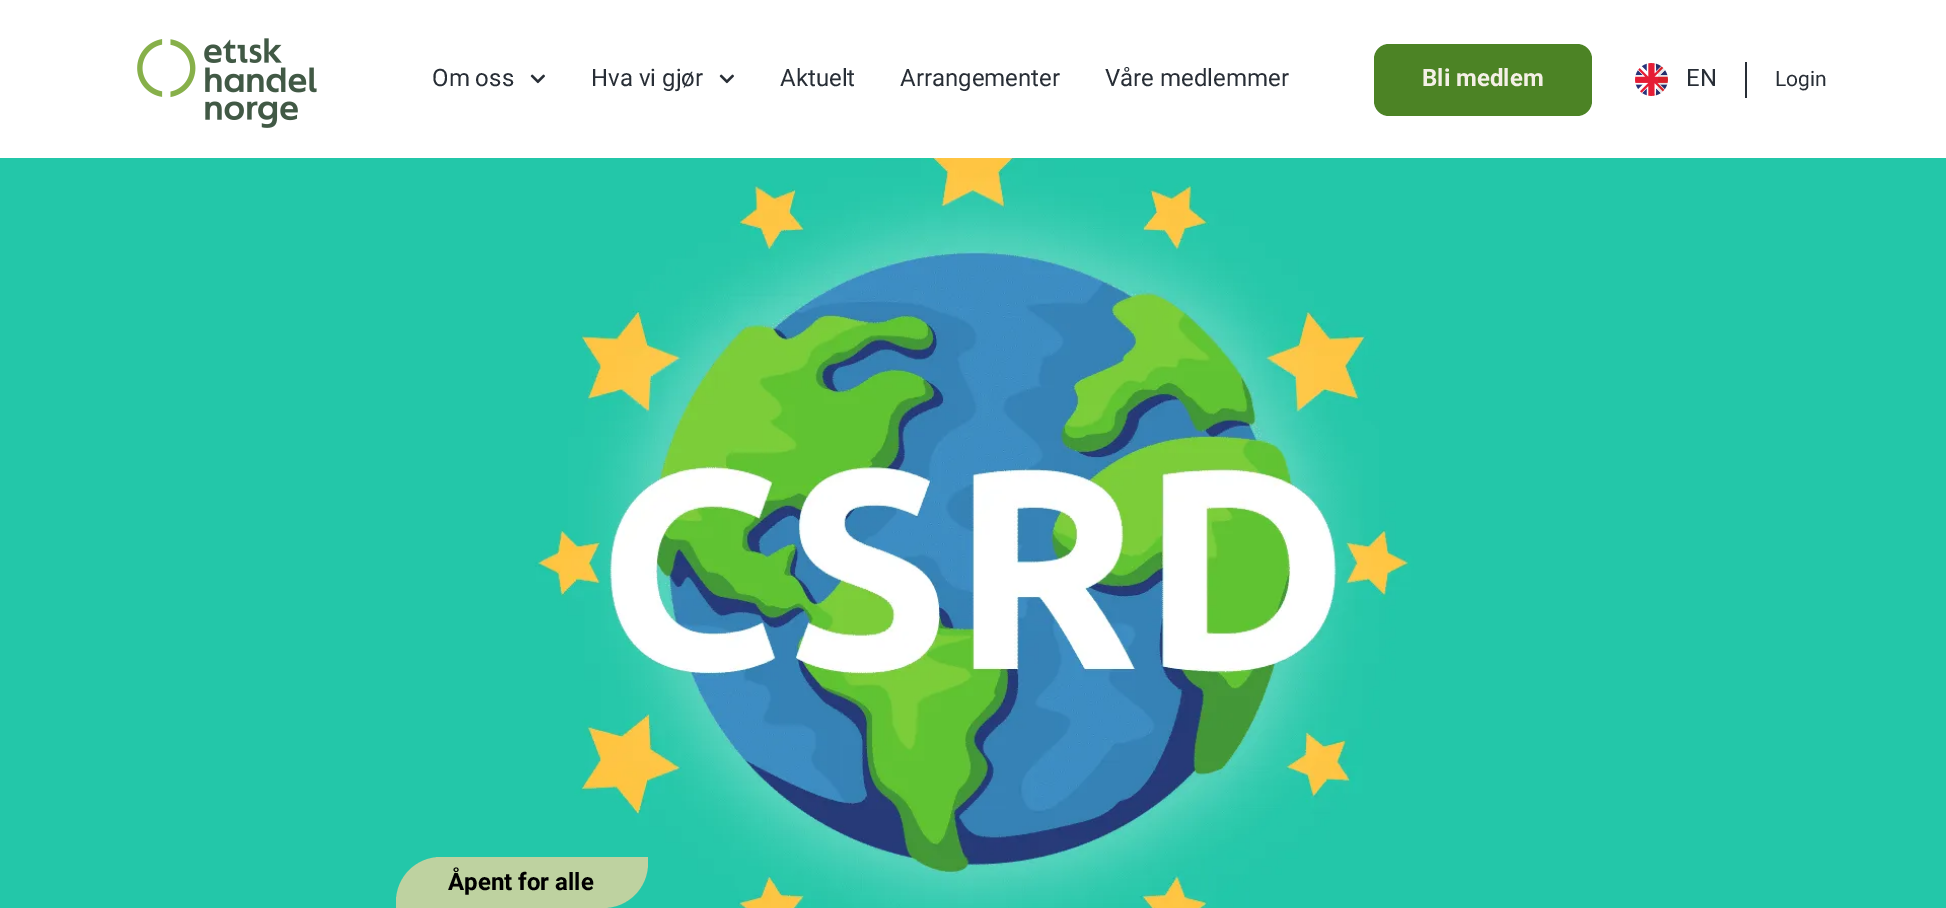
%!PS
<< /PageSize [1946 908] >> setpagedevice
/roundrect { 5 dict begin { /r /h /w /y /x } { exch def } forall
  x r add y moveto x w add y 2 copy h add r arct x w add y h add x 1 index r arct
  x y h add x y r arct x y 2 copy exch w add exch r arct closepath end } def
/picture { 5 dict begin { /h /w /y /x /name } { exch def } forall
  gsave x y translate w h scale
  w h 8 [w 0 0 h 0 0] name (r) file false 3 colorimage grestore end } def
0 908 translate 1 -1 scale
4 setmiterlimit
1 setgray
0 0 1946 908 rectfill
(img1.rgb) 137 38 180 90 picture
/Roboto-Regular [24 0 0 -24 0 0] selectfont
0.157 0.18 0.212 setrgbcolor
432 86 moveto (Om oss) show
(img2.rgb) 530 74 15 10 picture
591 86 moveto (Hva vi gjør) show
(img2.rgb) 719 74 15 10 picture
780 86 moveto (Aktuelt) show
900 86 moveto (Arrangementer) show
1105 86 moveto (Våre medlemmer) show
0.298 0.514 0.145 setrgbcolor
1374 44 218 72 15 roundrect fill
/Roboto-Bold [24 0 0 -24 0 0] selectfont
0.957 0.941 0.902 setrgbcolor
1422 86 moveto (Bli medlem) show
0.157 0.18 0.212 setrgbcolor
1745 62 2 36 rectfill
(img3.rgb) 1635 63 33 33 picture
/Roboto-Regular [24 0 0 -24 0 0] selectfont
1686 86 moveto (EN) show
/Roboto-Regular [21 0 0 -21 0 0] selectfont
1775 86 moveto (Login) show
(img4.rgb) 0 158 1946 750 picture
0.745 0.824 0.627 setrgbcolor
newpath 441 857 moveto 648 857 lineto 648 863 lineto 648 888 628 908 603 908 curveto 396 908 lineto 396 902 lineto 396 877 416 857 441 857 curveto closepath fill
/Roboto-Bold [24 0 0 -24 0 0] selectfont
0 setgray
448 890 moveto (Åpent for alle) show
showpage
